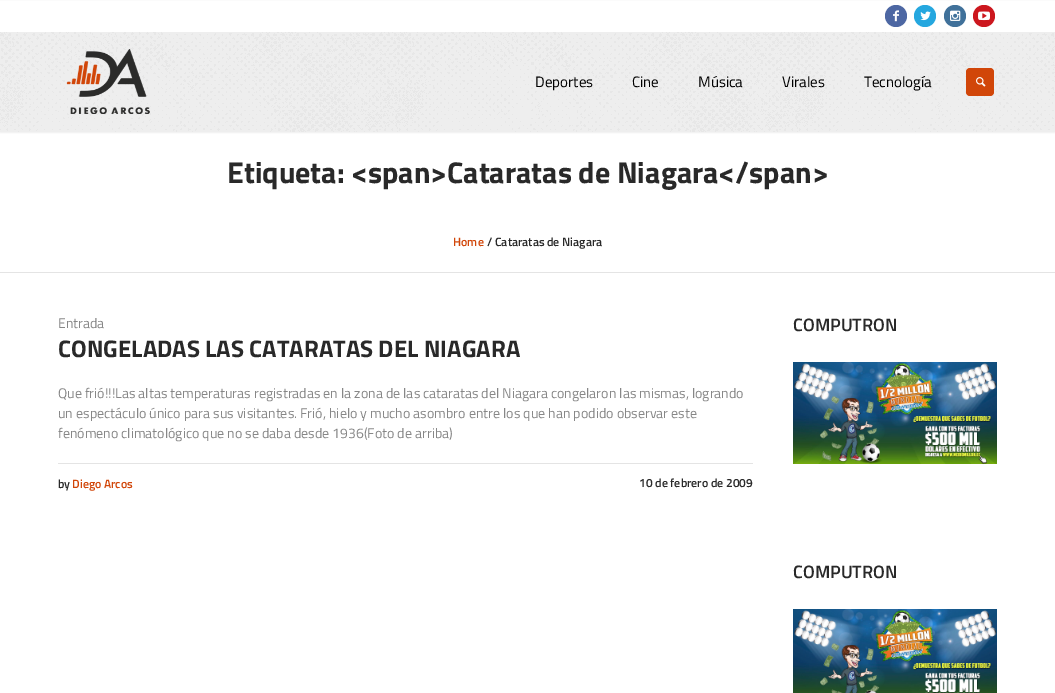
%!PS
<< /PageSize [1055 693] /PageUsesTransparency true >> setpagedevice
/alpha { dup .setfillconstantalpha .setstrokeconstantalpha } def
/roundrect { 5 dict begin { /r /h /w /y /x } { exch def } forall
  x r add y moveto x w add y 2 copy h add r arct x w add y h add x 1 index r arct
  x y h add x y r arct x y 2 copy exch w add exch r arct closepath end } def
/shadow { 12 dict begin { /a /b /q /h /w /y /x } { exch def } forall gsave /was 0 def
  9 -2 -9 { dup b mul 4 div /e exch def 1 sub .425 mul 2.718 exch exp 1 add a .99 .min exch div /now exch def
    1 1 now sub 1 was sub div sub alpha /was now def
    w h .min e 2 mul add 0 gt { x e sub y e sub w e 2 mul add h e 2 mul add
      q e add b .6 mul add w h .min 2 div e add .min 0 .max roundrect fill } if } for grestore end } def
/picture { 5 dict begin { /h /w /y /x /name } { exch def } forall
  gsave x y translate w h scale
  w h 8 [w 0 0 h 0 0] name (r) file false 3 colorimage grestore end } def
0 .pushpdf14devicefilter
0 693 translate 1 -1 scale
4 setmiterlimit
1 setgray
0 0 1055 693 rectfill
0 setgray
0 1 1055 132 0 0.5 0.05 shadow
1 setgray
0 1 1055 31 rectfill
0.302 0.404 0.639 setrgbcolor
newpath 896 16 11 0 360 arc closepath fill
(img1.rgb) 893 10 6 12 picture
0.145 0.655 0.875 setrgbcolor
newpath 925 16 11 0 360 arc closepath fill
(img2.rgb) 920 11 11 10 picture
0.251 0.443 0.604 setrgbcolor
newpath 955 16 11 0 360 arc closepath fill
(img3.rgb) 950 10 11 11 picture
0.8 0.09 0.118 setrgbcolor
newpath 984 16 11 0 360 arc closepath fill
(img4.rgb) 978 11 12 10 picture
(img5.rgb) 0 32 1055 100 picture
(img6.rgb) 66 49 84 65 picture
/TitilliumWeb-Regular [15 0 0 -15 0 0] selectfont
0 setgray
535 87 moveto (Deportes) show
632 87 moveto (Cine) show
698 87 moveto (Música) show
782 87 moveto (Virales) show
864 87 moveto (Tecnología) show
0.82 0.275 0.035 setrgbcolor
966 68 28 28 4 roundrect fill
(img7.rgb) 976 77 10 10 picture
0.894 setgray
0 272 1055 1 rectfill
/TitilliumWeb-Bold [30 0 0 -30 0 0] selectfont
0.161 setgray
227 183 moveto (Etiqueta: <span>Cataratas de Niagara</span>) show
/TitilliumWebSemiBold-SemiBold [12 0 0 -12 0 0] selectfont
0.82 0.275 0.035 setrgbcolor
453 246 moveto (Home) show
0.161 setgray
487 246 moveto (/ Cataratas de Niagara) show
/TitilliumWeb-Regular [14 0 0 -14 0 0] selectfont
0.529 setgray
58 328 moveto (Entrada) show
/TitilliumWeb-Bold [24 0 0 -24 0 0] selectfont
0.161 setgray
58 357 moveto (CONGELADAS LAS CATARATAS DEL NIAGARA) show
/TitilliumWeb-Regular [14 0 0 -14 0 0] selectfont
0.529 setgray
58 398 moveto (Que frió!!!Las altas temperaturas registradas en la zona de las cataratas del Niagara congelaron las mismas, logrando) show
58 418 moveto (un espectáculo único para sus visitantes. Frió, hielo y mucho asombro entre los que han podido observar este) show
58 438 moveto (fenómeno climatológico que no se daba desde 1936\(Foto de arriba\)) show
0.894 setgray
58 463 695 1 rectfill
/TitilliumWebSemiBold-SemiBold [12 0 0 -12 0 0] selectfont
0.161 setgray
58 488 moveto (by) show
0.82 0.275 0.035 setrgbcolor
72 488 moveto (Diego Arcos) show
0.161 setgray
639 487 moveto (10 de febrero de 2009) show
/TitilliumWebSemiBold-SemiBold [18 0 0 -18 0 0] selectfont
793 331 moveto (COMPUTRON) show
(img8.rgb) 793 362 204 102 picture
793 578 moveto (COMPUTRON) show
(img9.rgb) 793 609 204 84 picture
.poppdf14devicefilter showpage
